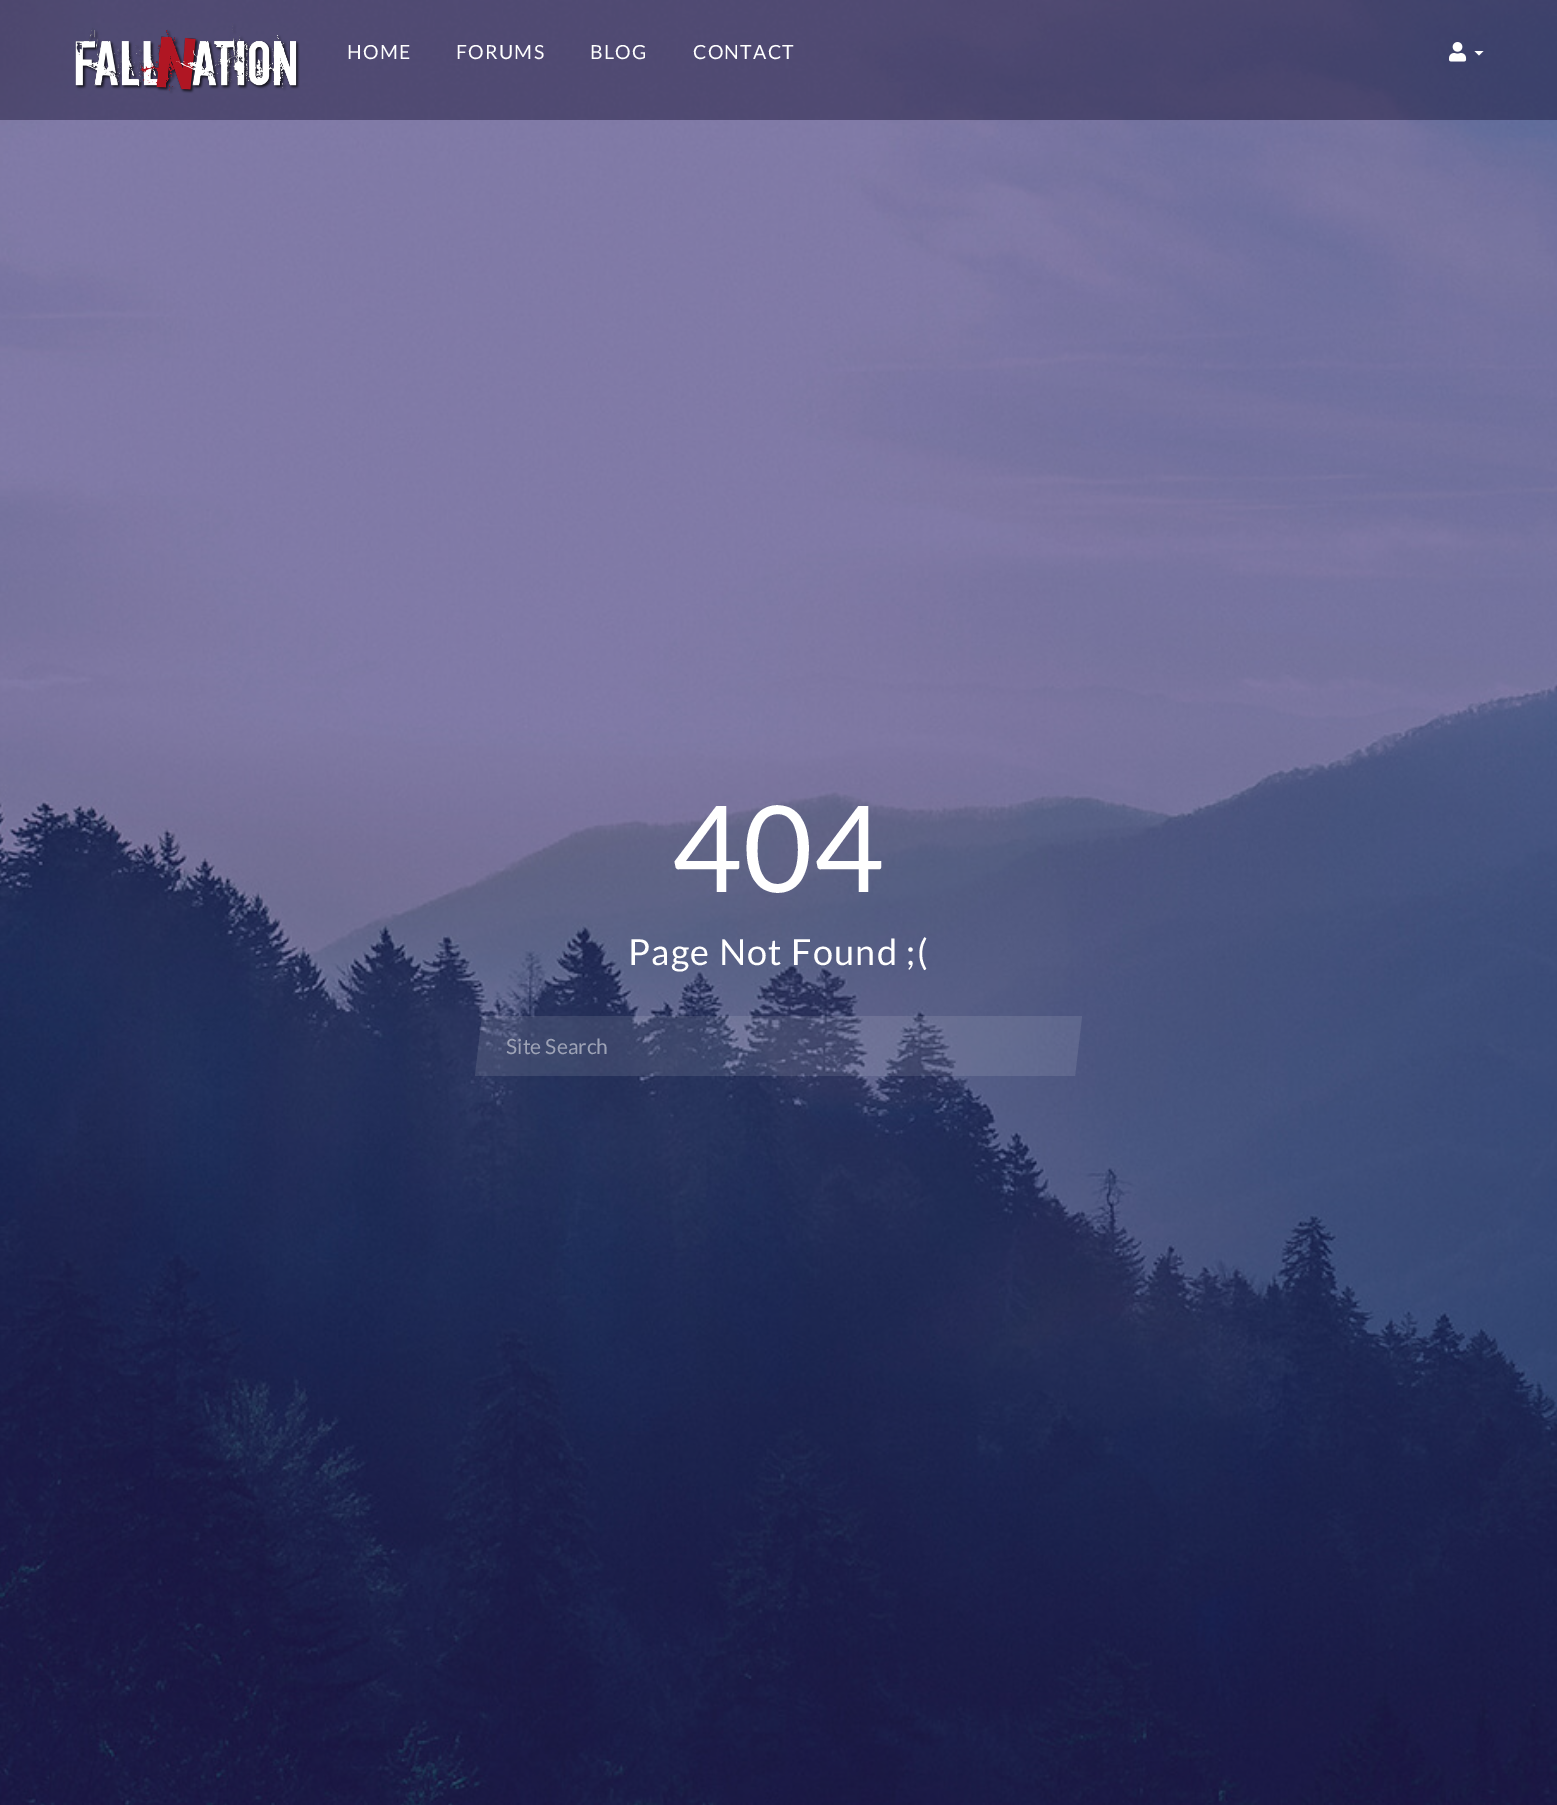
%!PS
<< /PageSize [1557 1805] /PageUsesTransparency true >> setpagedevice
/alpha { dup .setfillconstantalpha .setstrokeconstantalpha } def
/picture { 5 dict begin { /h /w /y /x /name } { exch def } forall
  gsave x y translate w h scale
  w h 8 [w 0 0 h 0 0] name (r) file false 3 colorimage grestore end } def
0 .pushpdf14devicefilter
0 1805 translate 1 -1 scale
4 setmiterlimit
0.086 0.035 0.384 setrgbcolor
0 0 1557 1805 rectfill
(img3.rgb) 0 0 1557 1805 picture
0.4 alpha
0.031 0.012 0.145 setrgbcolor
0 0 1557 120 rectfill
1 alpha
(img1.rgb) 75 23 225 71 picture
/Lato-Regular [19.5 0 0 -19.5 0 0] selectfont
1 setgray
347 59 moveto 1.25 0 (HOME) ashow
456 59 moveto 1.25 0 (FORUMS) ashow
590 59 moveto 1.25 0 (BLOG) ashow
693 59 moveto 1.25 0 (CONTACT) ashow
(img2.rgb) 1449 42 18 20 picture
newpath 1474.5 51 moveto 1483.5 51 lineto 1479 55.5 lineto closepath fill
/Lato-Regular [120 0 0 -120 0 0] selectfont
672 892 moveto 1.25 0 (404) ashow
/Lato-Regular [36 0 0 -36 0 0] selectfont
628 965 moveto 1.25 0 (Page Not Found ;\() ashow
0.1 alpha
newpath 482 1016 moveto 1082 1016 lineto 1075 1076 lineto 475 1076 lineto closepath fill
/Lato-Regular [21 0 0 -21 0 0] selectfont
1 alpha
0.62 0.639 0.714 setrgbcolor
506 1054 moveto (Site Search) show
.poppdf14devicefilter showpage
